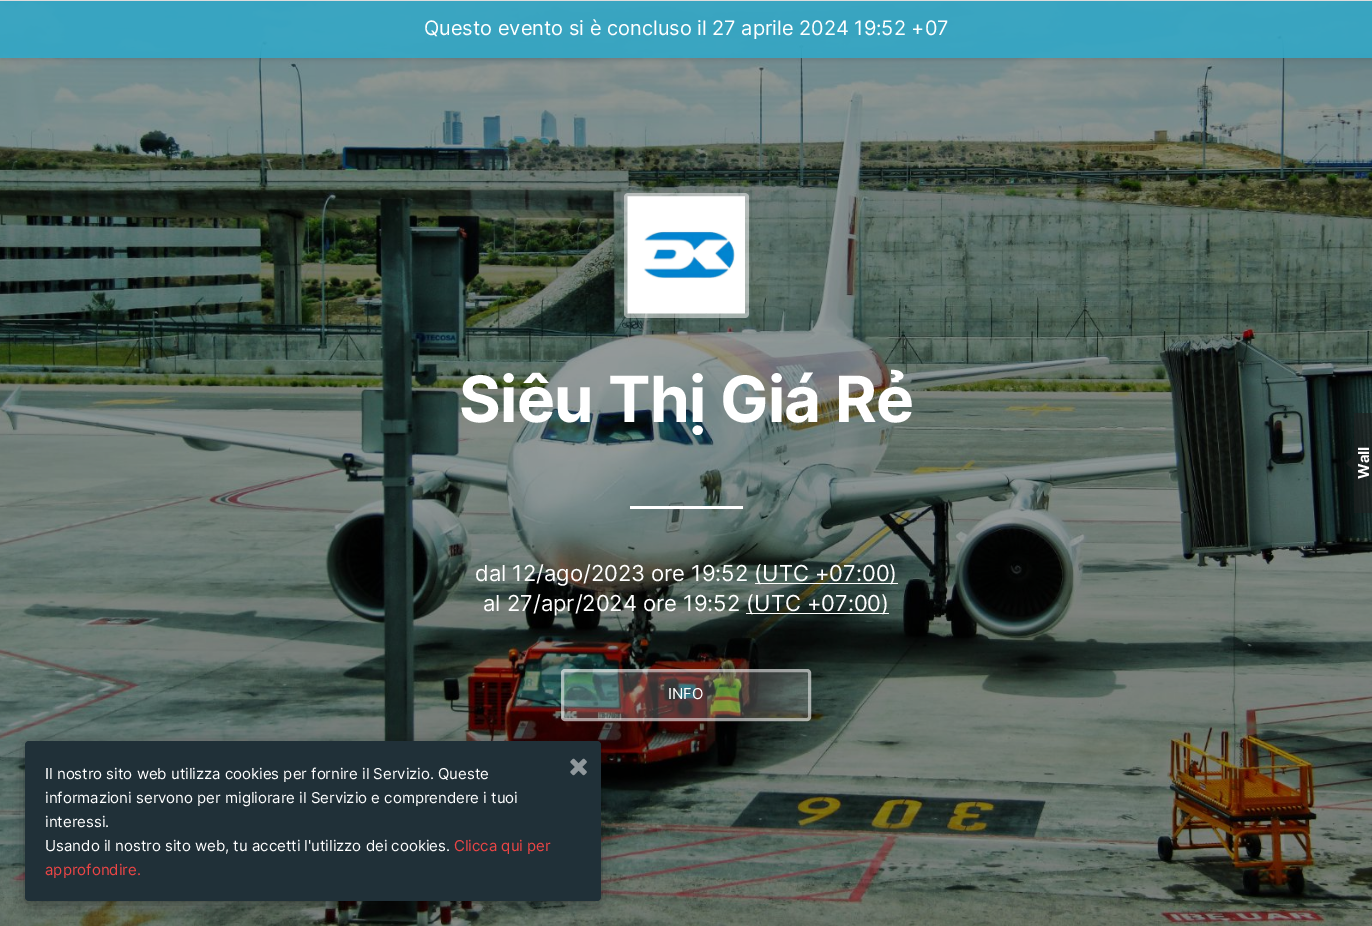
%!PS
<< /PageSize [1372 926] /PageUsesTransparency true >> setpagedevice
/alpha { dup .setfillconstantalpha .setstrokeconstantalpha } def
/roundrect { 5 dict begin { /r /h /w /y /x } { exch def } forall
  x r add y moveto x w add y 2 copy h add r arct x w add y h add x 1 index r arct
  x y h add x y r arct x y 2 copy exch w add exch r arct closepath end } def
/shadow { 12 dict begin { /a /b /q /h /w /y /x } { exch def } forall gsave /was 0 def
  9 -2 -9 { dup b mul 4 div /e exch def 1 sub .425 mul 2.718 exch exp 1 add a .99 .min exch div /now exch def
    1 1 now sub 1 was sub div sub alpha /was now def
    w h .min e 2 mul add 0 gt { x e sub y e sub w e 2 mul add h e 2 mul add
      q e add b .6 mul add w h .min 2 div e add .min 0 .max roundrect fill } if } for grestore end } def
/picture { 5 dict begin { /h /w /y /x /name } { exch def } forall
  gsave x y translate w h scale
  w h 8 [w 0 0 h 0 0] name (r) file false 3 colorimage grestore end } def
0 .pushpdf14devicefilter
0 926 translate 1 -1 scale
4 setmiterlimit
1 setgray
0 0 1372 926 rectfill
(img1.rgb) 0 1 1372 925 picture
gsave
newpath 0 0 moveto 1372 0 lineto 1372 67 lineto 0 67 lineto closepath 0 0 moveto 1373 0 lineto 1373 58 lineto 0 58 lineto closepath eoclip newpath
0 setgray
0 3 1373 57 0 2 0.1 shadow
grestore
0.867 setgray
0 0 1372 1 rectfill
0.9 alpha
0.196 0.655 0.776 setrgbcolor
0 1 1372 57 rectfill
/Inter-Regular [20 0 0 -20 0 0] selectfont
1 alpha
1 setgray
424 35 moveto (Questo evento si è concluso il 27 aprile 2024 19:52 +07) show
0.5 alpha
newpath 628 193 moveto 626 193 624 195 624 197 curveto 624 314 lineto 624 316 626 318 628 318 curveto 745 318 lineto 747 318 749 316 749 314 curveto 749 197 lineto 749 195 747 193 745 193 curveto closepath 628 197 moveto 628 314 lineto 745 314 lineto 745 197 lineto closepath eofill
1 alpha
(img2.rgb) 627 196 118 118 picture
/Inter-Bold [63.75 0 0 -63.75 0 0] selectfont
459 422 moveto -0.6 0 (Siêu Thị Giá Rẻ) ashow
630 506 113 3 rectfill
/Inter-Regular [22 0 0 -22 0 0] selectfont
475 581 moveto (dal 12/ago/2023 ore 19:52 \(UTC +07:00\)) show
755 583 143 1 rectfill
483 611 moveto (al 27/apr/2024 ore 19:52 \(UTC +07:00\)) show
746 613 143 1 rectfill
0.2 alpha
561 669 250 52 4 roundrect fill
0.5 alpha
3 setlinewidth
562.5 670.5 247 49 2.5 roundrect stroke
/Inter-Regular [15 0 0 -15 0 0] selectfont
1 alpha
668 699 moveto (INFO) show
0.6 alpha
0.122 setgray
1354 413 18 100 rectfill
newpath 1354 455.5 moveto 1354 470.5 lineto 1346 463 lineto closepath fill
/Inter-Bold [15 0 0 -15 0 0] selectfont
1 alpha
1 setgray
gsave 1369 479 translate -90 rotate 0 0 moveto (Wall) show grestore
0 setgray
25 744 576 160 4 7.5 0.4 shadow
0.125 0.188 0.22 setrgbcolor
25 741 576 160 4 roundrect fill
/Inter-Regular [15 0 0 -15 0 0] selectfont
1 setgray
45 779 moveto (Il nostro sito web utilizza cookies per fornire il Servizio. Queste) show
45 803 moveto (informazioni servono per migliorare il Servizio e comprendere i tuoi) show
45 827 moveto (interessi.) show
45 851 moveto (Usando il nostro sito web, tu accetti l'utilizzo dei cookies.) show
0.925 0.271 0.271 setrgbcolor
454 851 moveto (Clicca qui per) show
45 875 moveto (approfondire.) show
(img3.rgb) 570 758 17 18 picture
.poppdf14devicefilter showpage
